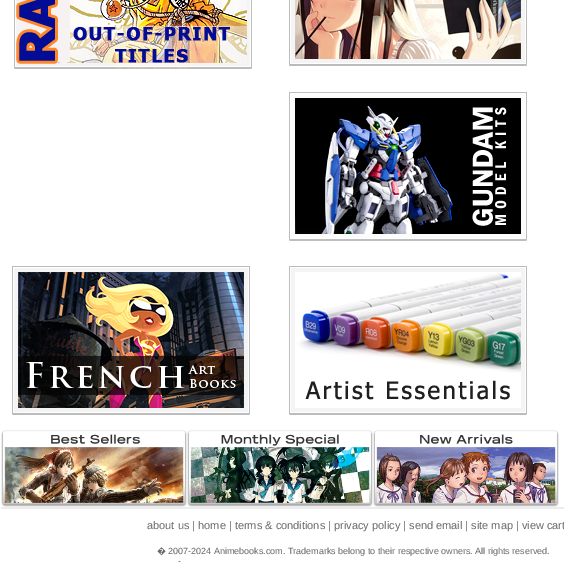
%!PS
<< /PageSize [564 562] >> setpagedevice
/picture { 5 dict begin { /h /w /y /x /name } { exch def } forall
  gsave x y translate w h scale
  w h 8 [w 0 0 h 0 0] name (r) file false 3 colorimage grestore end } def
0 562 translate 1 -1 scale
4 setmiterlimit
1 setgray
0 0 564 562 rectfill
(img1.rgb) 14 0 238 69 picture
(img2.rgb) 289 0 238 66 picture
(img3.rgb) 289 92 238 149 picture
(img4.rgb) 12 266 238 149 picture
(img5.rgb) 289 266 238 149 picture
(img6.rgb) 1 430 186 77 picture
(img7.rgb) 187 430 186 77 picture
(img8.rgb) 373 430 186 77 picture
0.929 0.925 0.929 setrgbcolor
1 507 563 2 rectfill
/LiberationSans-Regular [11 0 0 -11 0 0] selectfont
0.408 setgray
147 529 moveto (about us | home | terms & conditions | privacy policy | send email | site map | view cart) show
/NotoSans-Regular [9 0 0 -9 0 0] selectfont
157 554 moveto (�) show
/LiberationSans-Regular [9 0 0 -9 0 0] selectfont
168 554 moveto (2007-2024 Animebooks.com. Trademarks belong to their respective owners. All rights reserved.) show
178 564 moveto (-) show
showpage
